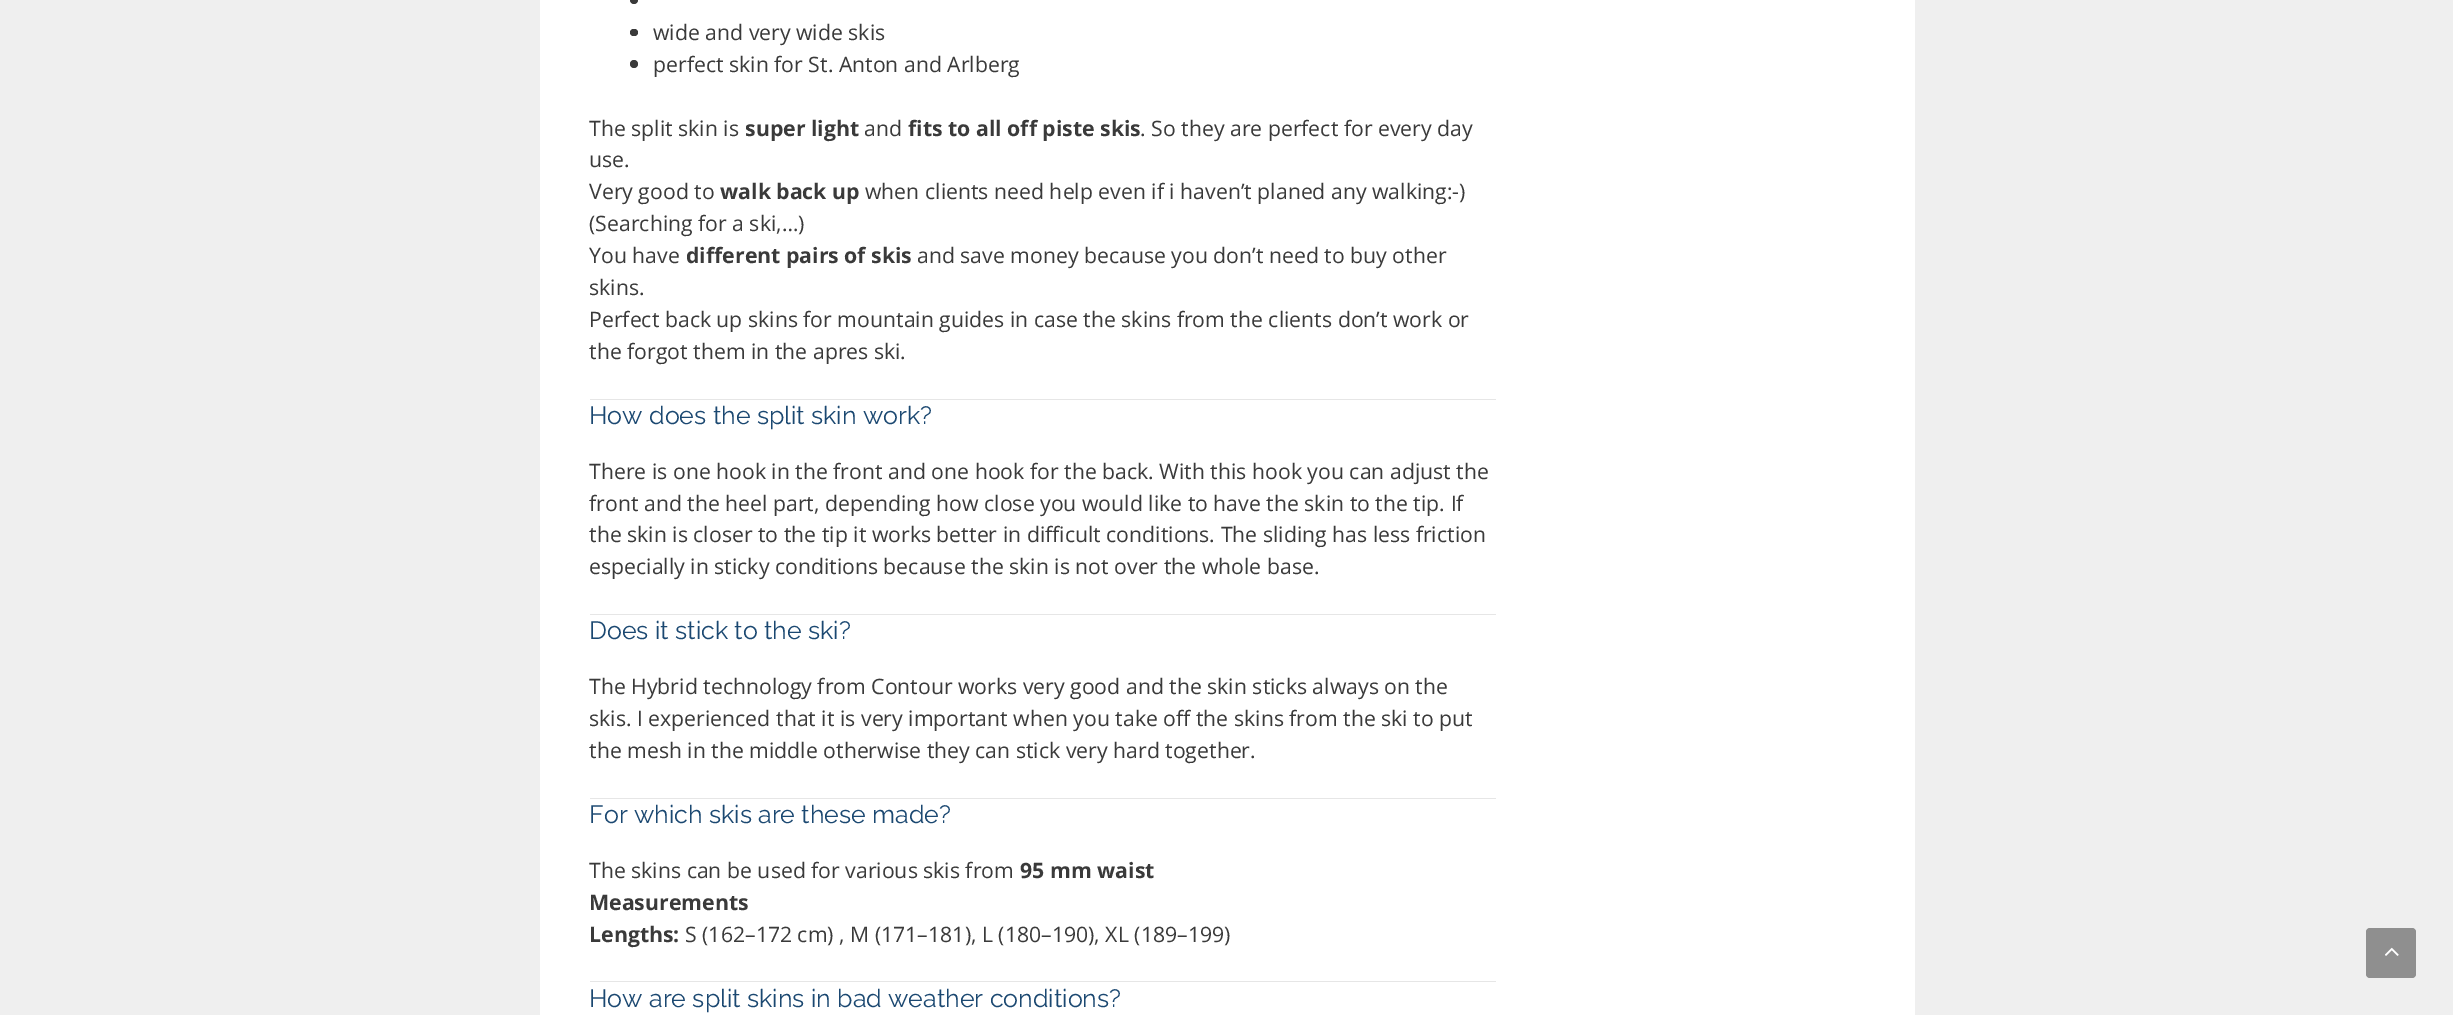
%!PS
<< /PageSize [2453 1015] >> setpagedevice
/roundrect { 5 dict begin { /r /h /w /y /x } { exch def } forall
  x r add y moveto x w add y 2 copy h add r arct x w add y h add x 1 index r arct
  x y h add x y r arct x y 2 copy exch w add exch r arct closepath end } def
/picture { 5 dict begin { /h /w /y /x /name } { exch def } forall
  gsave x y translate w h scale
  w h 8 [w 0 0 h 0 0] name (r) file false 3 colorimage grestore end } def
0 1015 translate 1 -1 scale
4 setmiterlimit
0.937 setgray
0 0 2453 1015 rectfill
1 setgray
540 0 1375 1015 rectfill
0.227 setgray
newpath 634 0 4 0 360 arc closepath fill
630 29 8 7 3.5 roundrect fill
/OpenSans-Regular [21.25 0 0 -21.25 0 0] selectfont
653 40 moveto (wide and very wide skis) show
newpath 634 64 4 0 360 arc closepath fill
653 72 moveto (perfect skin for St. Anton and Arlberg) show
589 136 moveto (The split skin is) show
/OpenSans-Bold [21.25 0 0 -21.25 0 0] selectfont
745 136 moveto (super light) show
/OpenSans-Regular [21.25 0 0 -21.25 0 0] selectfont
864 136 moveto (and) show
/OpenSans-Bold [21.25 0 0 -21.25 0 0] selectfont
908 136 moveto (fits to all off piste skis) show
/OpenSans-Regular [21.25 0 0 -21.25 0 0] selectfont
1140 136 moveto (. So they are perfect for every day) show
589 167 moveto (use.) show
589 199 moveto (Very good to) show
/OpenSans-Bold [21.25 0 0 -21.25 0 0] selectfont
720 199 moveto (walk back up) show
/OpenSans-Regular [21.25 0 0 -21.25 0 0] selectfont
865 199 moveto (when clients need help even if i haven’t planed any walking:-\)) show
589 231 moveto (\(Searching for a ski,…\)) show
589 263 moveto (You have) show
/OpenSans-Bold [21.25 0 0 -21.25 0 0] selectfont
686 263 moveto (different pairs of skis) show
/OpenSans-Regular [21.25 0 0 -21.25 0 0] selectfont
917 263 moveto (and save money because you don’t need to buy other) show
589 295 moveto (skins.) show
589 327 moveto (Perfect back up skins for mountain guides in case the skins from the clients don’t work or) show
589 359 moveto (the forgot them in the apres ski.) show
0.902 setgray
590 399 906 1 rectfill
/Raleway-Regular [25 0 0 -25 0 0] selectfont
0.106 0.282 0.443 setrgbcolor
589 424 moveto (How does the split skin work?) show
/OpenSans-Regular [21.25 0 0 -21.25 0 0] selectfont
0.227 setgray
589 479 moveto (There is one hook in the front and one hook for the back. With this hook you can adjust the) show
589 511 moveto (front and the heel part, depending how close you would like to have the skin to the tip. If) show
589 542 moveto (the skin is closer to the tip it works better in difficult conditions. The sliding has less friction) show
589 574 moveto (especially in sticky conditions because the skin is not over the whole base.) show
0.902 setgray
590 614 906 1 rectfill
/Raleway-Regular [25 0 0 -25 0 0] selectfont
0.106 0.282 0.443 setrgbcolor
589 639 moveto (Does it stick to the ski?) show
/OpenSans-Regular [21.25 0 0 -21.25 0 0] selectfont
0.227 setgray
589 694 moveto (The Hybrid technology from Contour works very good and the skin sticks always on the) show
589 726 moveto (skis. I experienced that it is very important when you take off the skins from the ski to put) show
589 758 moveto (the mesh in the middle otherwise they can stick very hard together.) show
0.902 setgray
590 798 906 1 rectfill
/Raleway-Regular [25 0 0 -25 0 0] selectfont
0.106 0.282 0.443 setrgbcolor
589 823 moveto (For which skis are these made?) show
/OpenSans-Regular [21.25 0 0 -21.25 0 0] selectfont
0.227 setgray
589 878 moveto (The skins can be used for various skis from) show
/OpenSans-Bold [21.25 0 0 -21.25 0 0] selectfont
1020 878 moveto (95 mm waist) show
589 910 moveto (Measurements) show
589 942 moveto (Lengths:) show
/OpenSans-Regular [21.25 0 0 -21.25 0 0] selectfont
685 942 moveto (S \(162–172 cm\) , M \(171–181\), L \(180–190\), XL \(189–199\)) show
0.902 setgray
590 981 906 1 rectfill
/Raleway-Regular [25 0 0 -25 0 0] selectfont
0.106 0.282 0.443 setrgbcolor
589 1007 moveto (How are split skins in bad weather conditions?) show
0.561 setgray
2366 928 50 50 4 roundrect fill
(img1.rgb) 2385 947 14 9 picture
showpage
